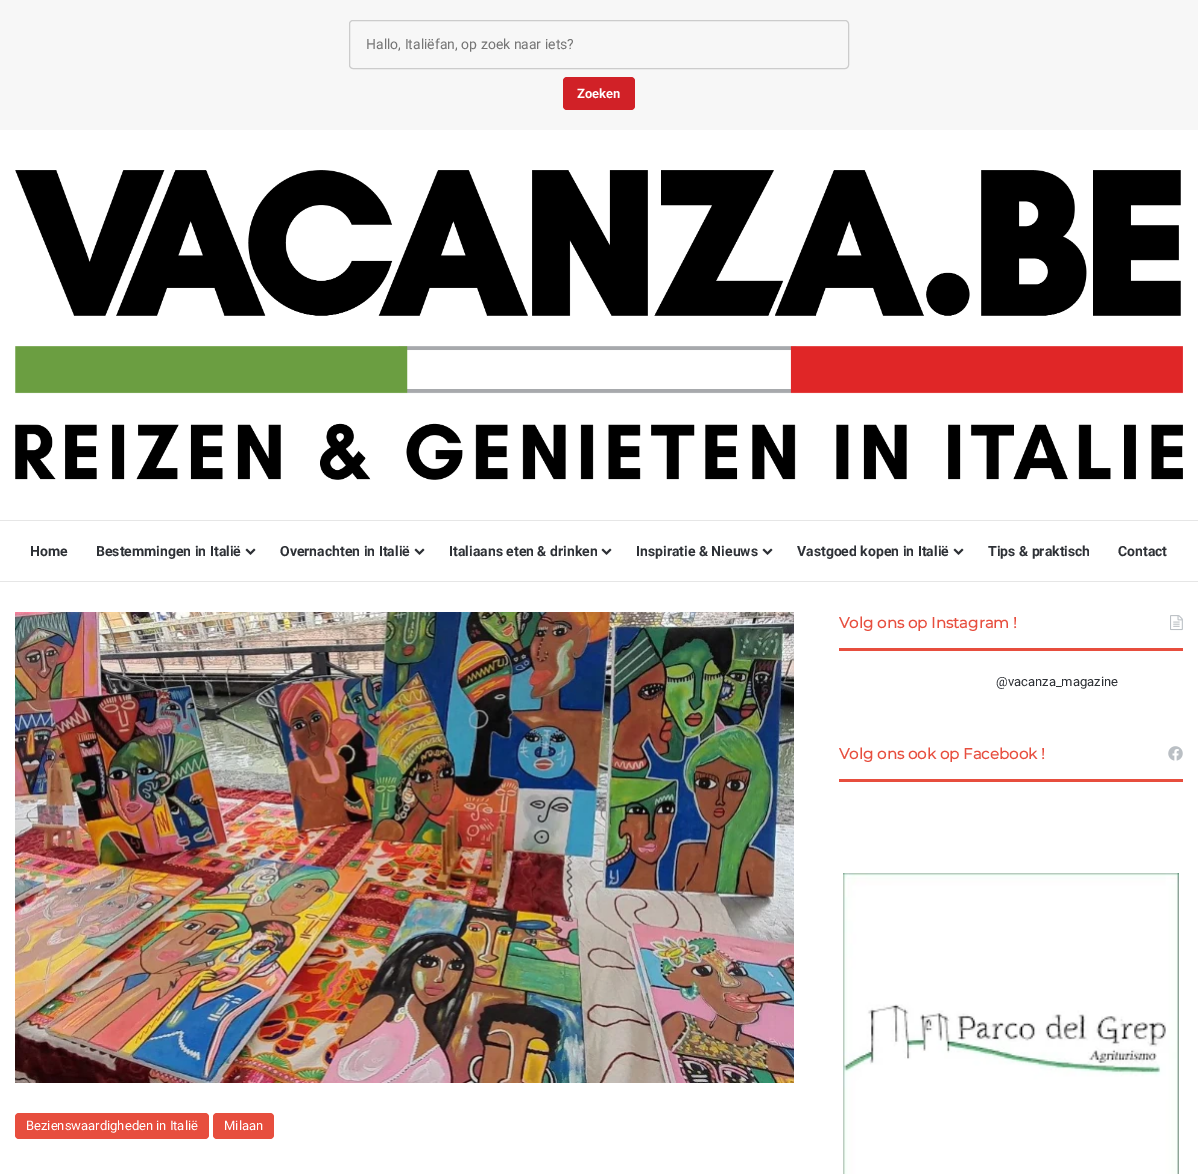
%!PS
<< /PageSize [1198 1174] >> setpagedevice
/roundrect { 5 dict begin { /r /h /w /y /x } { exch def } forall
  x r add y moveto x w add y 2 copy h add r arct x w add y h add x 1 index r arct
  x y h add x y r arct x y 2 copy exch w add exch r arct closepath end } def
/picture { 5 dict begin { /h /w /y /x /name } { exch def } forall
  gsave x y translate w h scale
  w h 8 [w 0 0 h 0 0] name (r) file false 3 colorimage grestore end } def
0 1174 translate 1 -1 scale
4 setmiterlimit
0.969 setgray
0 0 1198 1174 rectfill
0.8 setgray
349.5 20.5 499 48 3.5 roundrect stroke
/Roboto-Regular [14 0 0 -14 0 0] selectfont
0.459 setgray
366 49 moveto (Hallo, Italiëfan, op zoek naar iets?) show
0.82 0.129 0.153 setrgbcolor
563 77 72 33 4 roundrect fill
/Roboto-Bold [13 0 0 -13 0 0] selectfont
1 setgray
577 98 moveto (Zoeken) show
0 130 1198 1044 rectfill
(img1.rgb) 15 170 1168 310 picture
0.902 setgray
0 520 1198 1 rectfill
0 581 1198 1 rectfill
/Roboto-Bold [14 0 0 -14 0 0] selectfont
0.18 0.192 0.212 setrgbcolor
30 556 moveto (Home) show
96 556 moveto (Bestemmingen in Italië) show
(img2.rgb) 245 548 11 7 picture
280 556 moveto (Overnachten in Italië) show
(img2.rgb) 414 548 11 7 picture
449 556 moveto (Italiaans eten & drinken) show
(img2.rgb) 601 548 11 7 picture
636 556 moveto (Inspiratie & Nieuws) show
(img2.rgb) 762 548 11 7 picture
797 556 moveto (Vastgoed kopen in Italië) show
(img2.rgb) 953 548 11 7 picture
988 556 moveto (Tips & praktisch) show
1118 556 moveto (Contact) show
0.906 0.306 0.243 setrgbcolor
839 648 344 3 rectfill
/Montserrat-Bold [15 0 0 -15 0 0] selectfont
839 628 moveto (Volg ons op Instagram !) show
(img3.rgb) 1170 615 13 16 picture
/Roboto-Regular [13 0 0 -13 0 0] selectfont
0.18 0.192 0.212 setrgbcolor
996 686 moveto (@vacanza_magazine) show
0.906 0.306 0.243 setrgbcolor
839 779 344 3 rectfill
/Montserrat-Bold [15 0 0 -15 0 0] selectfont
839 759 moveto (Volg ons ook op Facebook !) show
(img4.rgb) 1168 746 15 15 picture
(img5.rgb) 843 873 336 301 picture
(img6.rgb) 15 612 779 471 picture
15 1113 194 26 4 roundrect fill
/Roboto-Regular [13 0 0 -13 0 0] selectfont
1 setgray
26 1130 moveto (Bezienswaardigheden in Italië) show
0.906 0.306 0.243 setrgbcolor
213 1113 61 26 4 roundrect fill
1 setgray
224 1130 moveto (Milaan) show
showpage
